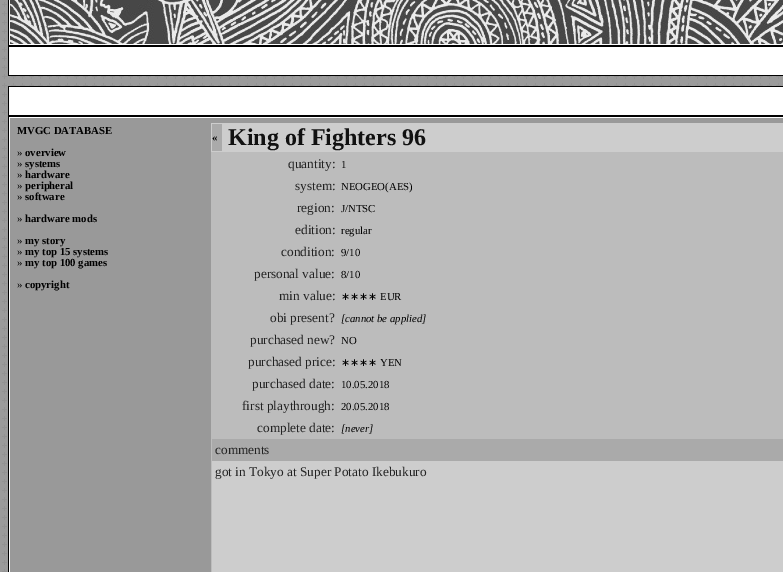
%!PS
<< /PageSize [783 572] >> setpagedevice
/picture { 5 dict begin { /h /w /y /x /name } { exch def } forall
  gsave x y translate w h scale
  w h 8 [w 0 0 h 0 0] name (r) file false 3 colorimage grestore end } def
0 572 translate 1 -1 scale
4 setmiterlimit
1 setgray
0 0 783 572 rectfill
(img1.rgb) 0 0 783 572 picture
0 setgray
8 0 775 76 rectfill
1 setgray
9 0 774 45 rectfill
(img2.rgb) 10 0 773 44 picture
9 47 774 28 rectfill
0 setgray
8 86 775 486 rectfill
1 setgray
9 87 774 28 rectfill
9 117 774 455 rectfill
0.6 setgray
10 118 773 454 rectfill
/LiberationSerif-Bold [10.75 0 0 -10.75 0 0] selectfont
0 setgray
17 134 moveto (MVGC DATABASE) show
/LiberationSerif-Regular [10.75 0 0 -10.75 0 0] selectfont
17 156 moveto (») show
/LiberationSerif-Bold [10.75 0 0 -10.75 0 0] selectfont
25 156 moveto (overview) show
/LiberationSerif-Regular [10.75 0 0 -10.75 0 0] selectfont
17 167 moveto (») show
/LiberationSerif-Bold [10.75 0 0 -10.75 0 0] selectfont
25 167 moveto (systems) show
/LiberationSerif-Regular [10.75 0 0 -10.75 0 0] selectfont
17 178 moveto (») show
/LiberationSerif-Bold [10.75 0 0 -10.75 0 0] selectfont
25 178 moveto (hardware) show
/LiberationSerif-Regular [10.75 0 0 -10.75 0 0] selectfont
17 189 moveto (») show
/LiberationSerif-Bold [10.75 0 0 -10.75 0 0] selectfont
25 189 moveto (peripheral) show
/LiberationSerif-Regular [10.75 0 0 -10.75 0 0] selectfont
17 200 moveto (») show
/LiberationSerif-Bold [10.75 0 0 -10.75 0 0] selectfont
25 200 moveto (software) show
/LiberationSerif-Regular [10.75 0 0 -10.75 0 0] selectfont
17 222 moveto (») show
/LiberationSerif-Bold [10.75 0 0 -10.75 0 0] selectfont
25 222 moveto (hardware mods) show
/LiberationSerif-Regular [10.75 0 0 -10.75 0 0] selectfont
17 244 moveto (») show
/LiberationSerif-Bold [10.75 0 0 -10.75 0 0] selectfont
25 244 moveto (my story) show
/LiberationSerif-Regular [10.75 0 0 -10.75 0 0] selectfont
17 255 moveto (») show
/LiberationSerif-Bold [10.75 0 0 -10.75 0 0] selectfont
25 255 moveto (my top 15 systems) show
/LiberationSerif-Regular [10.75 0 0 -10.75 0 0] selectfont
17 266 moveto (») show
/LiberationSerif-Bold [10.75 0 0 -10.75 0 0] selectfont
25 266 moveto (my top 100 games) show
/LiberationSerif-Regular [10.75 0 0 -10.75 0 0] selectfont
17 288 moveto (») show
/LiberationSerif-Bold [10.75 0 0 -10.75 0 0] selectfont
25 288 moveto (copyright) show
0.804 setgray
211 123 572 29 rectfill
0.667 setgray
212 124 10 27 rectfill
0 setgray
212 141 moveto («) show
/LiberationSerif-Bold [24 0 0 -24 0 0] selectfont
0.067 setgray
228 145 moveto (King of Fighters 96) show
0.737 setgray
211 152 572 420 rectfill
/LiberationSerif-Regular [13.3 0 0 -13.3 0 0] selectfont
0.133 setgray
288 168 moveto (quantity:) show
/LiberationSerif-Regular [10.75 0 0 -10.75 0 0] selectfont
0 setgray
341 168 moveto (1) show
/LiberationSerif-Regular [13.3 0 0 -13.3 0 0] selectfont
0.133 setgray
295 190 moveto (system:) show
/LiberationSerif-Regular [10.75 0 0 -10.75 0 0] selectfont
0 setgray
341 190 moveto (NEOGEO\(AES\)) show
/LiberationSerif-Regular [13.3 0 0 -13.3 0 0] selectfont
0.133 setgray
297 212 moveto (region:) show
/LiberationSerif-Regular [10.75 0 0 -10.75 0 0] selectfont
0 setgray
341 212 moveto (J/NTSC) show
/LiberationSerif-Regular [13.3 0 0 -13.3 0 0] selectfont
0.133 setgray
295 234 moveto (edition:) show
/LiberationSerif-Regular [10.75 0 0 -10.75 0 0] selectfont
0 setgray
341 234 moveto (regular) show
/LiberationSerif-Regular [13.3 0 0 -13.3 0 0] selectfont
0.133 setgray
281 256 moveto (condition:) show
/LiberationSerif-Regular [10.75 0 0 -10.75 0 0] selectfont
0 setgray
341 256 moveto (9/10) show
/LiberationSerif-Regular [13.3 0 0 -13.3 0 0] selectfont
0.133 setgray
254 278 moveto (personal value:) show
/LiberationSerif-Regular [10.75 0 0 -10.75 0 0] selectfont
0 setgray
341 278 moveto (8/10) show
/LiberationSerif-Regular [13.3 0 0 -13.3 0 0] selectfont
0.133 setgray
279 300 moveto (min value:) show
/DejaVuSans-Regular [10.75 0 0 -10.75 0 0] selectfont
0 setgray
341 300 moveto (∗∗∗∗) show
/LiberationSerif-Regular [10.75 0 0 -10.75 0 0] selectfont
380 300 moveto (EUR) show
/LiberationSerif-Regular [13.3 0 0 -13.3 0 0] selectfont
0.133 setgray
270 322 moveto (obi present?) show
/LiberationSerif-Italic [10.75 0 0 -10.75 0 0] selectfont
0 setgray
341 322 moveto ([cannot be applied]) show
/LiberationSerif-Regular [13.3 0 0 -13.3 0 0] selectfont
0.133 setgray
250 344 moveto (purchased new?) show
/LiberationSerif-Regular [10.75 0 0 -10.75 0 0] selectfont
0 setgray
341 344 moveto (NO) show
/LiberationSerif-Regular [13.3 0 0 -13.3 0 0] selectfont
0.133 setgray
248 366 moveto (purchased price:) show
/DejaVuSans-Regular [10.75 0 0 -10.75 0 0] selectfont
0 setgray
341 366 moveto (∗∗∗∗) show
/LiberationSerif-Regular [10.75 0 0 -10.75 0 0] selectfont
380 366 moveto (YEN) show
/LiberationSerif-Regular [13.3 0 0 -13.3 0 0] selectfont
0.133 setgray
252 388 moveto (purchased date:) show
/LiberationSerif-Regular [10.75 0 0 -10.75 0 0] selectfont
0 setgray
341 388 moveto (10.05.2018) show
/LiberationSerif-Regular [13.3 0 0 -13.3 0 0] selectfont
0.133 setgray
242 410 moveto (first playthrough:) show
/LiberationSerif-Regular [10.75 0 0 -10.75 0 0] selectfont
0 setgray
341 410 moveto (20.05.2018) show
/LiberationSerif-Regular [13.3 0 0 -13.3 0 0] selectfont
0.133 setgray
257 432 moveto (complete date:) show
/LiberationSerif-Italic [10.75 0 0 -10.75 0 0] selectfont
0 setgray
341 432 moveto ([never]) show
0.667 setgray
212 439 571 22 rectfill
/LiberationSerif-Regular [13.3 0 0 -13.3 0 0] selectfont
0.133 setgray
215 454 moveto (comments) show
0.804 setgray
212 461 571 111 rectfill
0.133 setgray
215 476 moveto (got in Tokyo at Super Potato Ikebukuro) show
showpage
